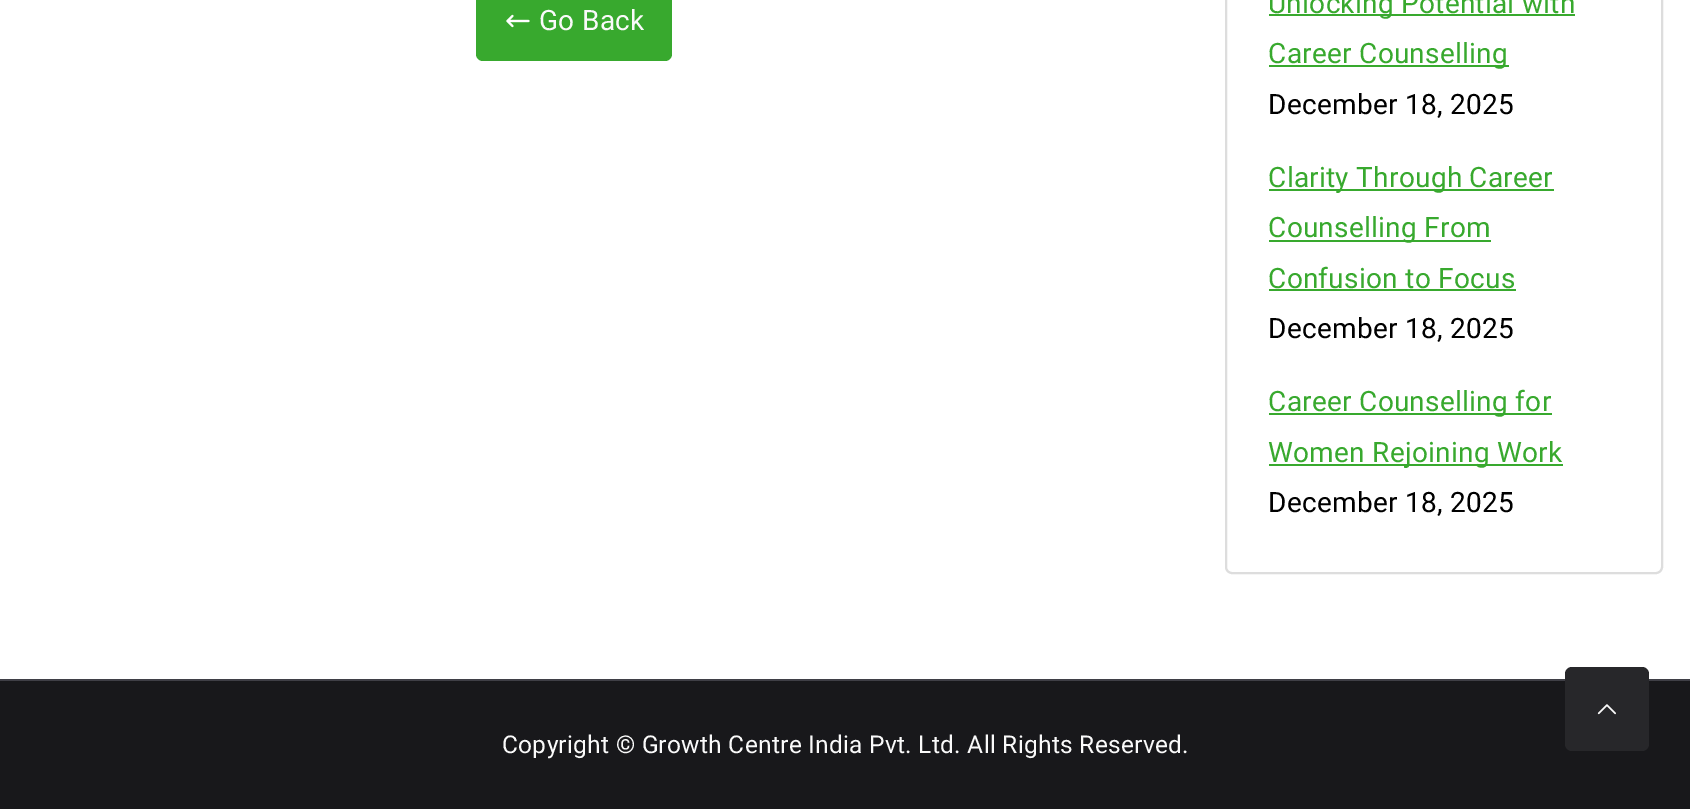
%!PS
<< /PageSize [1690 809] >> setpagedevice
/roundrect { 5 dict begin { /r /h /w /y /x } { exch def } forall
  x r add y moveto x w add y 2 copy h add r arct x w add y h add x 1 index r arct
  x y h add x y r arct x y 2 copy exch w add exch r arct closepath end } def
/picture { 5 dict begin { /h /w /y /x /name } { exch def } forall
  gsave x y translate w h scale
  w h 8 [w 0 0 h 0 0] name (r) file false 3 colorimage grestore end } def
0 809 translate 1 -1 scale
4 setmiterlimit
1 setgray
0 0 1690 809 rectfill
0.22 0.663 0.18 setrgbcolor
476 -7 196 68 7 roundrect fill
(img1.rgb) 506 14 24 14 picture
/Roboto-Regular [28 0 0 -28 0 0] selectfont
0.98 setgray
539 30 moveto 0.28 0 (Go Back) ashow
0.867 setgray
2 setlinewidth
1226 -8 436 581 6 roundrect stroke
0.22 0.663 0.18 setrgbcolor
1269 14 306 2 rectfill
1268 13 moveto 0.28 0 (Unlocking Potential with) ashow
1269 65 240 2 rectfill
1268 63 moveto 0.28 0 (Career Counselling) ashow
0 setgray
1268 114 moveto 0.28 0 (December 18, 2025) ashow
0.22 0.663 0.18 setrgbcolor
1269 189 285 2 rectfill
1268 187 moveto 0.28 0 (Clarity Through Career) ashow
1269 240 222 2 rectfill
1268 237 moveto 0.28 0 (Counselling From) ashow
1268 288 moveto 0.28 0 (Confusion to Focus) ashow
1269 289 247 2 rectfill
0 setgray
1268 338 moveto 0.28 0 (December 18, 2025) ashow
0.22 0.663 0.18 setrgbcolor
1269 413 283 2 rectfill
1268 411 moveto 0.28 0 (Career Counselling for) ashow
1269 464 294 2 rectfill
1268 462 moveto 0.28 0 (Women Rejoining Work) ashow
0 setgray
1268 512 moveto 0.28 0 (December 18, 2025) ashow
0.094 0.094 0.106 setrgbcolor
0 681 1690 128 rectfill
0.247 0.247 0.275 setrgbcolor
0 679 1690 2 rectfill
/Roboto-Regular [24.5 0 0 -24.5 0 0] selectfont
0.98 setgray
502 753 moveto 0.28 0 (Copyright © Growth Centre India Pvt. Ltd. All Rights Reserved.) ashow
0.153 0.153 0.165 setrgbcolor
1565 667 84 84 7 roundrect fill
(img2.rgb) 1597 704 19 11 picture
showpage
